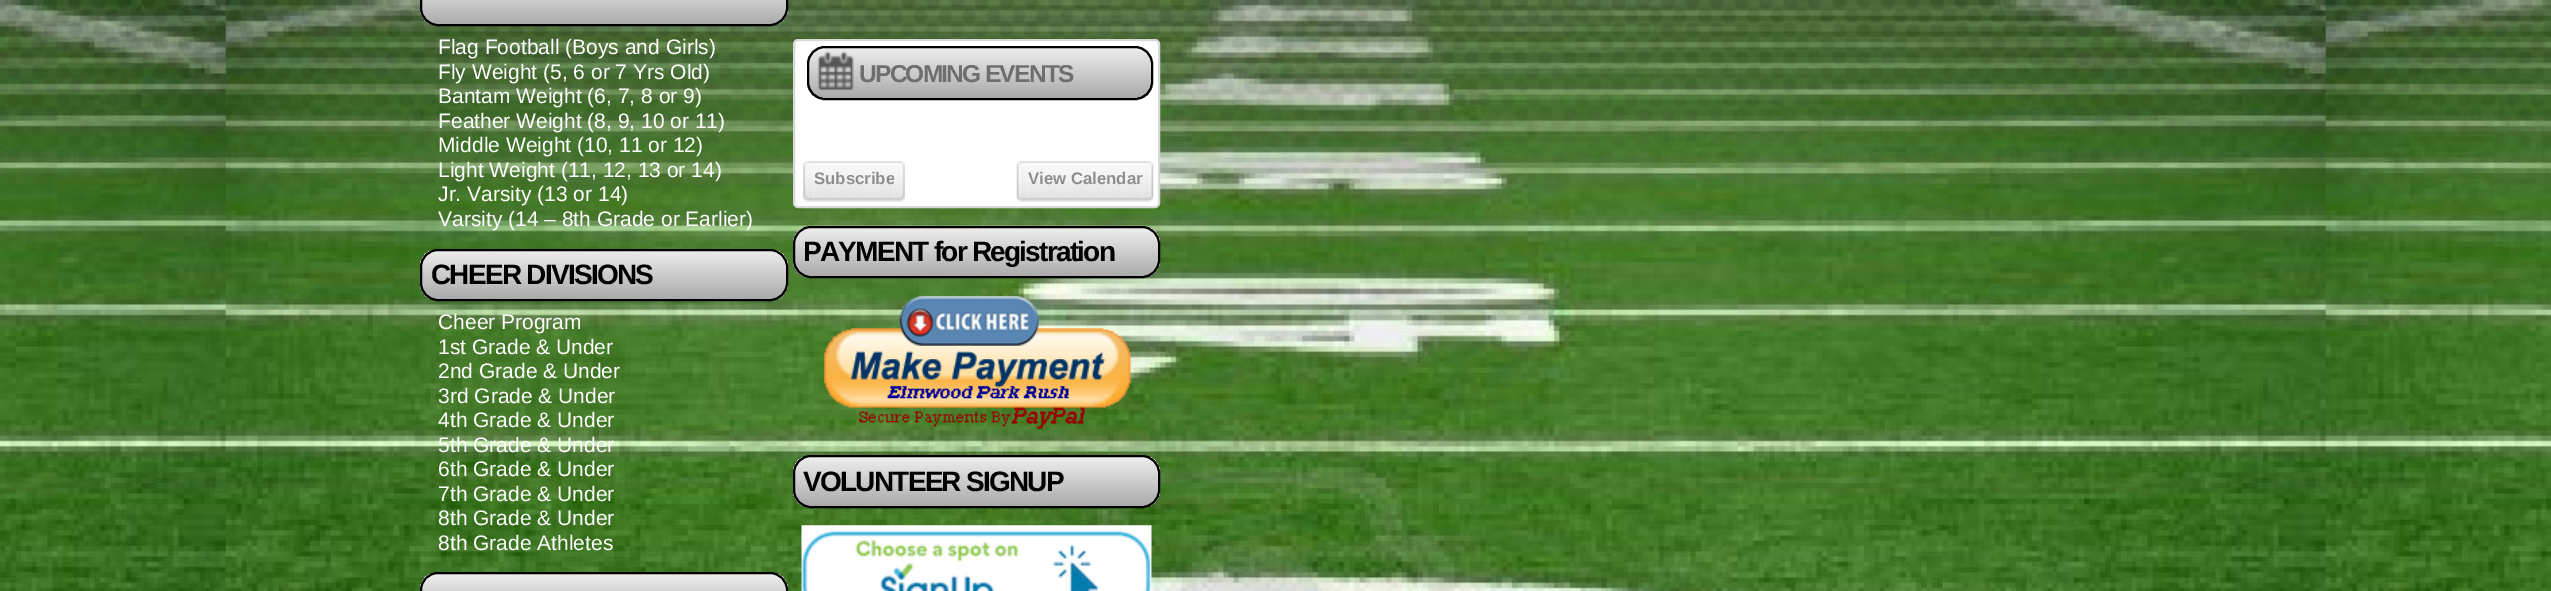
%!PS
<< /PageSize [2551 591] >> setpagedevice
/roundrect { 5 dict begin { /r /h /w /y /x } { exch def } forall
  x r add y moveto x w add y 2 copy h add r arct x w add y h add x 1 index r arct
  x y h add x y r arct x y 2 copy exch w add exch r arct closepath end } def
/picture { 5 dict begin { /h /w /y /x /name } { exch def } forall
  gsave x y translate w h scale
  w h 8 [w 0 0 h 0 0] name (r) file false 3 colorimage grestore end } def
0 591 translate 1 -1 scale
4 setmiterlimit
1 setgray
0 0 2551 591 rectfill
(img1.rgb) 0 0 2551 591 picture
(img2.rgb) 0 0 2551 188 picture
gsave
420 -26 368 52 18 roundrect clip newpath
gsave newpath 420 0 moveto 788 0 lineto 788 25 lineto 420 25 lineto closepath clip newpath
<< /ShadingType 2 /ColorSpace /DeviceRGB /Coords [422 -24 422 25] /Extend [true true] /Function << /FunctionType 2 /Domain [0 1] /C0 [0.933 0.933 0.933] /C1 [0.667 0.667 0.667] /N 1 >> >> shfill grestore
grestore
0 setgray
2 setlinewidth
421 -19 366 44 17 roundrect stroke
/LiberationSans-Regular [21 0 0 -21 0 0] selectfont
1 setgray
438 54 moveto (Flag Football \(Boys and Girls\)) show
438 79 moveto (Fly Weight \(5, 6 or 7 Yrs Old\)) show
438 103 moveto (Bantam Weight \(6, 7, 8 or 9\)) show
438 128 moveto (Feather Weight \(8, 9, 10 or 11\)) show
438 152 moveto (Middle Weight \(10, 11 or 12\)) show
438 177 moveto (Light Weight \(11, 12, 13 or 14\)) show
438 201 moveto (Jr. Varsity \(13 or 14\)) show
438 226 moveto (Varsity \(14 – 8th Grade or Earlier\)) show
gsave
420 249 368 52 18 roundrect clip newpath
gsave newpath 420 250 moveto 788 250 lineto 788 299 lineto 420 299 lineto closepath clip newpath
<< /ShadingType 2 /ColorSpace /DeviceRGB /Coords [422 250 422 299] /Extend [true true] /Function << /FunctionType 2 /Domain [0 1] /C0 [0.933 0.933 0.933] /C1 [0.667 0.667 0.667] /N 1 >> >> shfill grestore
grestore
0 setgray
421 250 366 50 17 roundrect stroke
/LiberationSans-Bold [28 0 0 -28 0 0] selectfont
431 284 moveto -1.75 0 (CHEER DIVISIONS) ashow
/LiberationSans-Regular [21 0 0 -21 0 0] selectfont
1 setgray
438 329 moveto (Cheer Program) show
438 354 moveto (1st Grade & Under) show
438 378 moveto (2nd Grade & Under) show
438 403 moveto (3rd Grade & Under) show
438 427 moveto (4th Grade & Under) show
438 452 moveto (5th Grade & Under) show
438 476 moveto (6th Grade & Under) show
438 501 moveto (7th Grade & Under) show
438 525 moveto (8th Grade & Under) show
438 550 moveto (8th Grade Athletes) show
gsave
420 572 368 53 18 roundrect clip newpath
gsave newpath 420 574 moveto 788 574 lineto 788 591 lineto 420 591 lineto closepath clip newpath
<< /ShadingType 2 /ColorSpace /DeviceRGB /Coords [422 574 422 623] /Extend [true true] /Function << /FunctionType 2 /Domain [0 1] /C0 [0.933 0.933 0.933] /C1 [0.667 0.667 0.667] /N 1 >> >> shfill grestore
grestore
0 setgray
421 573 366 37 17 roundrect stroke
1 setgray
794 40 365 167 4 roundrect gsave fill grestore
0.847 setgray
stroke
gsave
807 46 346 54 18 roundrect clip newpath
gsave newpath 807 47 moveto 1153 47 lineto 1153 98 lineto 807 98 lineto closepath clip newpath
<< /ShadingType 2 /ColorSpace /DeviceRGB /Coords [809 47 809 98] /Extend [true true] /Function << /FunctionType 2 /Domain [0 1] /C0 [0.933 0.933 0.933] /C1 [0.667 0.667 0.667] /N 1 >> >> shfill grestore
grestore
0 setgray
808 47 344 52 17 roundrect stroke
(img3.rgb) 817 51 37 40 picture
/LiberationSans-Bold [24.5 0 0 -24.5 0 0] selectfont
0.431 setgray
859 82 moveto -1.75 0 (UPCOMING EVENTS) ashow
(img4.rgb) 803 161 11 41 picture
(img5.rgb) 814 161 81 41 picture
/LiberationSans-Bold [16.75 0 0 -16.75 0 0] selectfont
0.557 setgray
814 184 moveto (Subscribe) show
(img6.rgb) 894 161 11 41 picture
(img7.rgb) 1016 161 12 41 picture
(img8.rgb) 1027 161 116 41 picture
1028 184 moveto (View Calendar) show
(img9.rgb) 1142 161 12 41 picture
gsave
793 226 367 52 18 roundrect clip newpath
gsave newpath 793 228 moveto 1160 228 lineto 1160 277 lineto 793 277 lineto closepath clip newpath
<< /ShadingType 2 /ColorSpace /DeviceRGB /Coords [795 228 795 277] /Extend [true true] /Function << /FunctionType 2 /Domain [0 1] /C0 [0.933 0.933 0.933] /C1 [0.667 0.667 0.667] /N 1 >> >> shfill grestore
grestore
0 setgray
794 227 365 50 17 roundrect stroke
/LiberationSans-Bold [28 0 0 -28 0 0] selectfont
803 261 moveto -1.75 0 (PAYMENT for Registration) ashow
(img10.rgb) 824 296 307 133 picture
gsave
793 455 367 53 18 roundrect clip newpath
gsave newpath 793 457 moveto 1160 457 lineto 1160 506 lineto 793 506 lineto closepath clip newpath
<< /ShadingType 2 /ColorSpace /DeviceRGB /Coords [795 457 795 506] /Extend [true true] /Function << /FunctionType 2 /Domain [0 1] /C0 [0.933 0.933 0.933] /C1 [0.667 0.667 0.667] /N 1 >> >> shfill grestore
grestore
794 456 365 51 17 roundrect stroke
803 491 moveto -1.75 0 (VOLUNTEER SIGNUP) ashow
(img11.rgb) 801 525 351 66 picture
showpage
